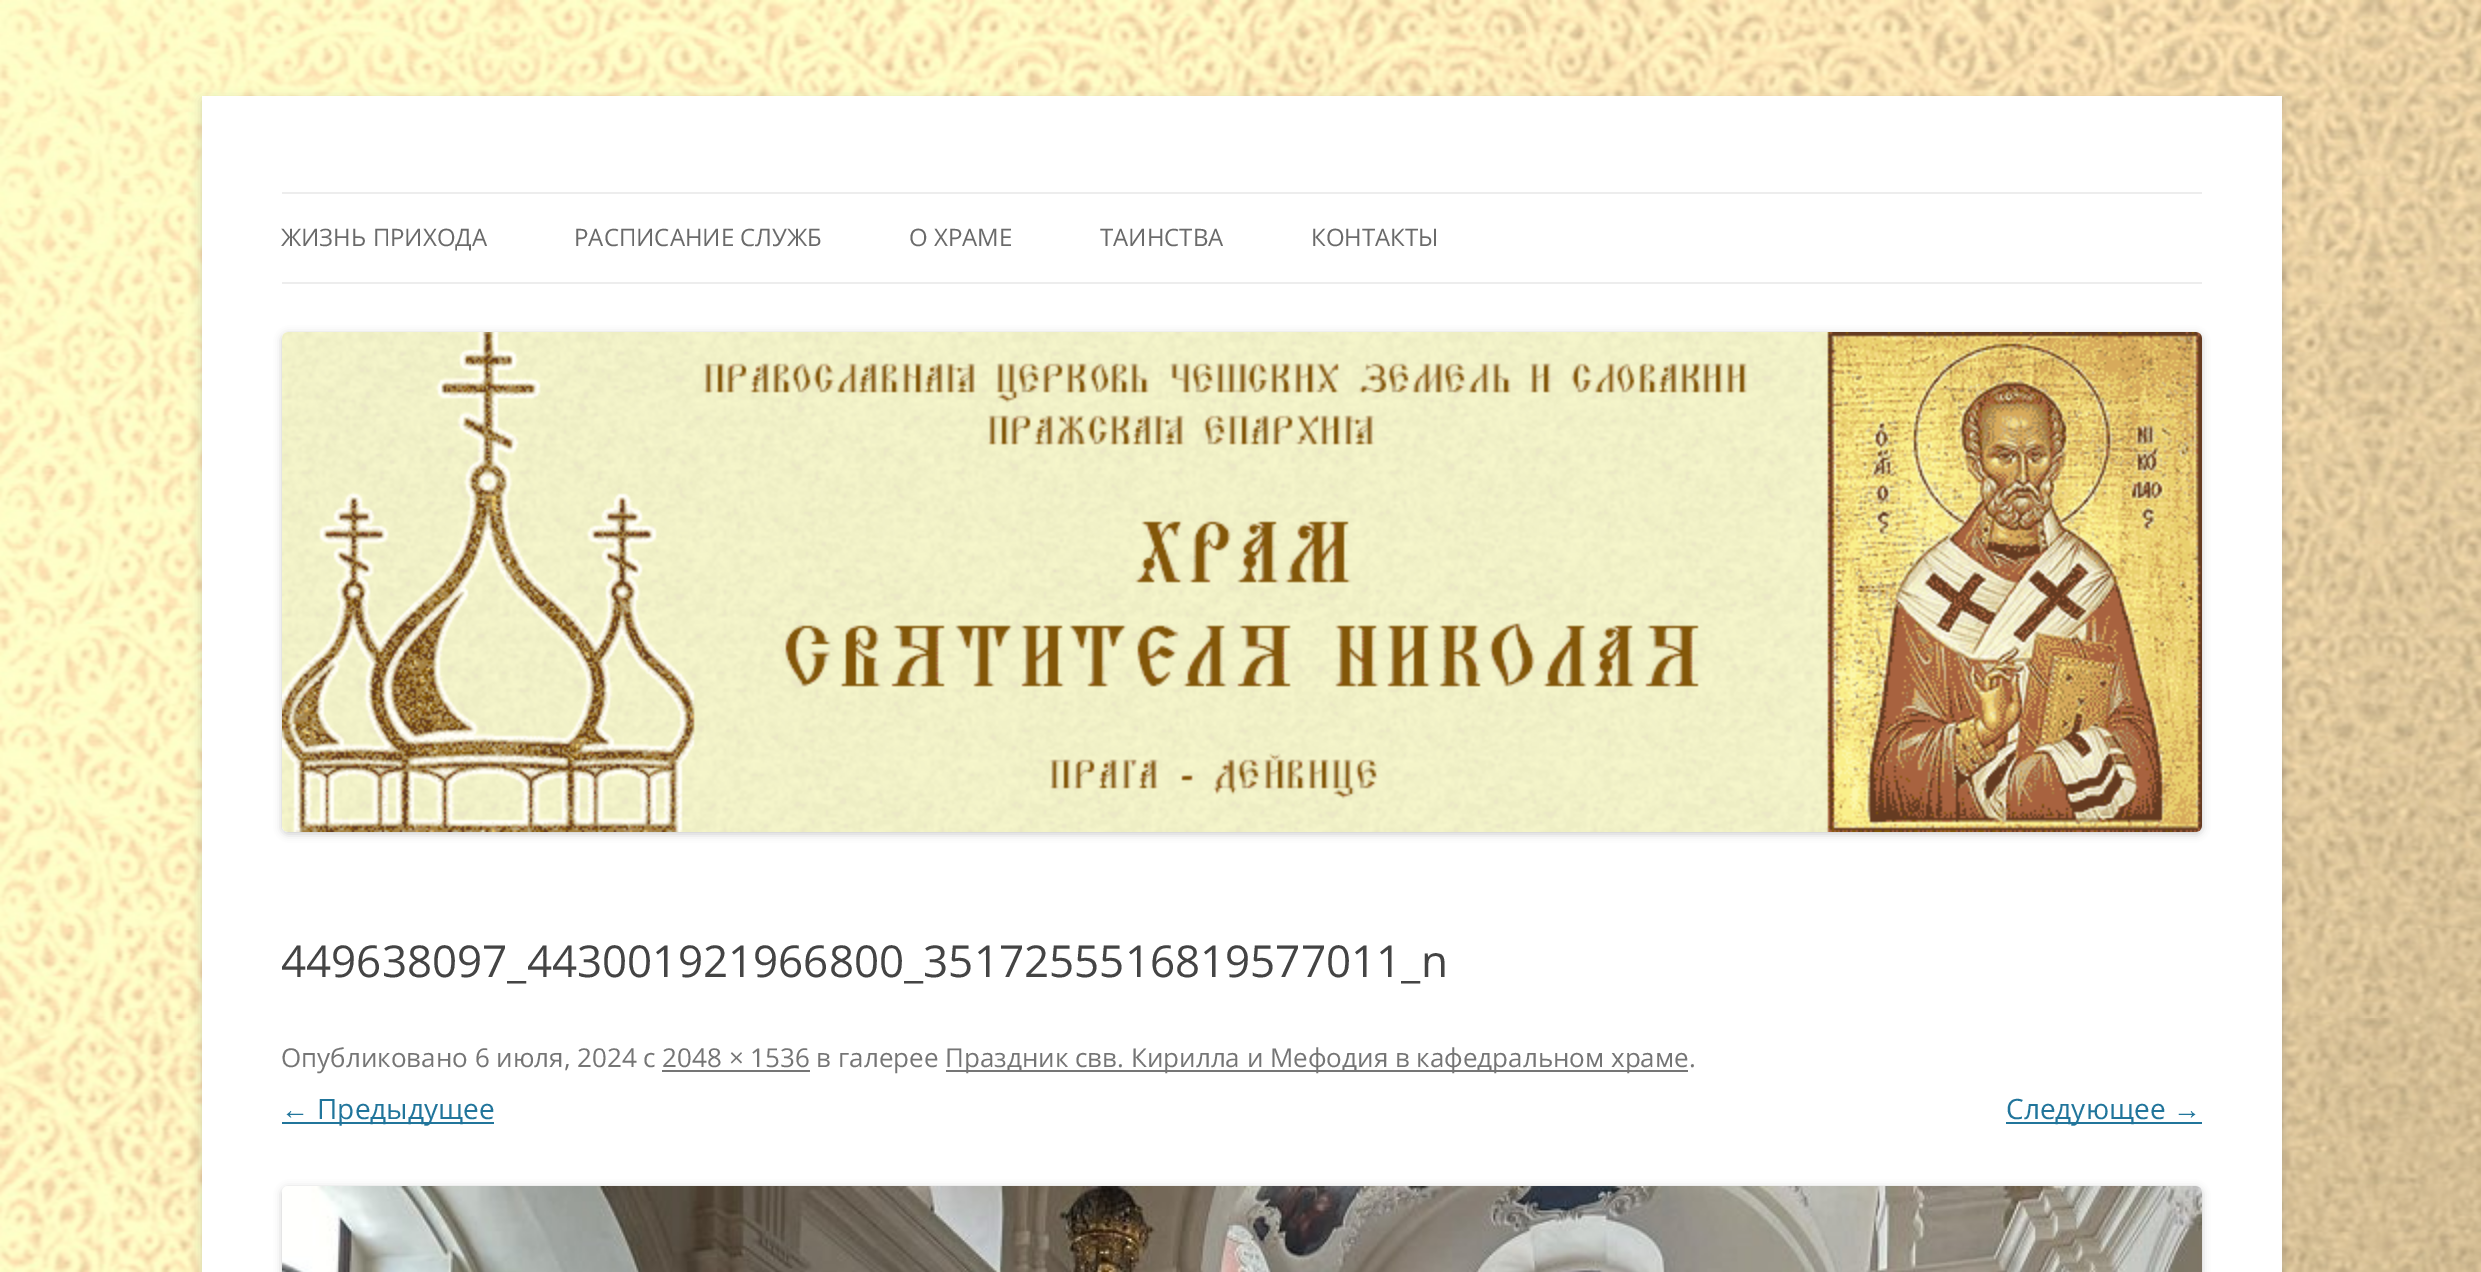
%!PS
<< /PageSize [2481 1272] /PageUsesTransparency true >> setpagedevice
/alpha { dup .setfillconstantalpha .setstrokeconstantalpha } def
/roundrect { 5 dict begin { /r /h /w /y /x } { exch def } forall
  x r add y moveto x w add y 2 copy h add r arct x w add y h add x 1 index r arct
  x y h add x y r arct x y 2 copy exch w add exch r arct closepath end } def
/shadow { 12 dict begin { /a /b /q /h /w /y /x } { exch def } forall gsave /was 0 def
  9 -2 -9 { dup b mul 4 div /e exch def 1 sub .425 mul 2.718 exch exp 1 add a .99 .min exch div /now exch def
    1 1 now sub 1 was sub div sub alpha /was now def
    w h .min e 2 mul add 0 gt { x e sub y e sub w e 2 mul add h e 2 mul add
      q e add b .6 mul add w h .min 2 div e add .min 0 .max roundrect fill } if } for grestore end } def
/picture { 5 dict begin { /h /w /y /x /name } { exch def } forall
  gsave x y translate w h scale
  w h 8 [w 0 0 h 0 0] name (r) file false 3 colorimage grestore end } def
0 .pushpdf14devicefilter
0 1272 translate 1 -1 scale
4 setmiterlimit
1 setgray
0 0 2481 1272 rectfill
(img1.rgb) 0 0 2481 1272 picture
0.392 setgray
202 100 2080 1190 0 6 0.3 shadow
1 setgray
202 96 2080 1176 rectfill
0.929 setgray
282 192 1920 2 rectfill
282 282 1920 2 rectfill
/OpenSans-Regular [24 0 0 -24 0 0] selectfont
0.416 setgray
281 246 moveto (ЖИЗНЬ ПРИХОДА) show
574 246 moveto (РАСПИСАНИЕ СЛУЖБ) show
909 246 moveto (О ХРАМЕ) show
1100 246 moveto (ТАИНСТВА) show
1311 246 moveto (КОНТАКТЫ) show
0 setgray
282 334 1920 500 6 4 0.2 shadow
(img2.rgb) 282 332 1920 500 picture
/OpenSans-Regular [44 0 0 -44 0 0] selectfont
0.267 setgray
281 977 moveto (449638097_443001921966800_3517255516819577011_n) show
/OpenSans-Regular [26 0 0 -26 0 0] selectfont
0.459 setgray
281 1067 moveto (Опубликовано 6 июля, 2024 с 2048 × 1536 в галерее) show
946 1070 742 2 rectfill
945 1067 moveto (Праздник свв. Кирилла и Мефодия в кафедральном храме.) show
662 1070 148 2 rectfill
/LiberationSans-Regular [28 0 0 -28 0 0] selectfont
0.129 0.459 0.608 setrgbcolor
281 1119 moveto (←) show
282 1122 212 2 rectfill
/OpenSans-Regular [28 0 0 -28 0 0] selectfont
317 1119 moveto (Предыдущее) show
2006 1122 196 2 rectfill
2006 1119 moveto (Следующее) show
/LiberationSans-Regular [28 0 0 -28 0 0] selectfont
2173 1119 moveto (→) show
0 setgray
282 1188 1920 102 6 4 0.2 shadow
(img3.rgb) 282 1186 1920 86 picture
.poppdf14devicefilter showpage
